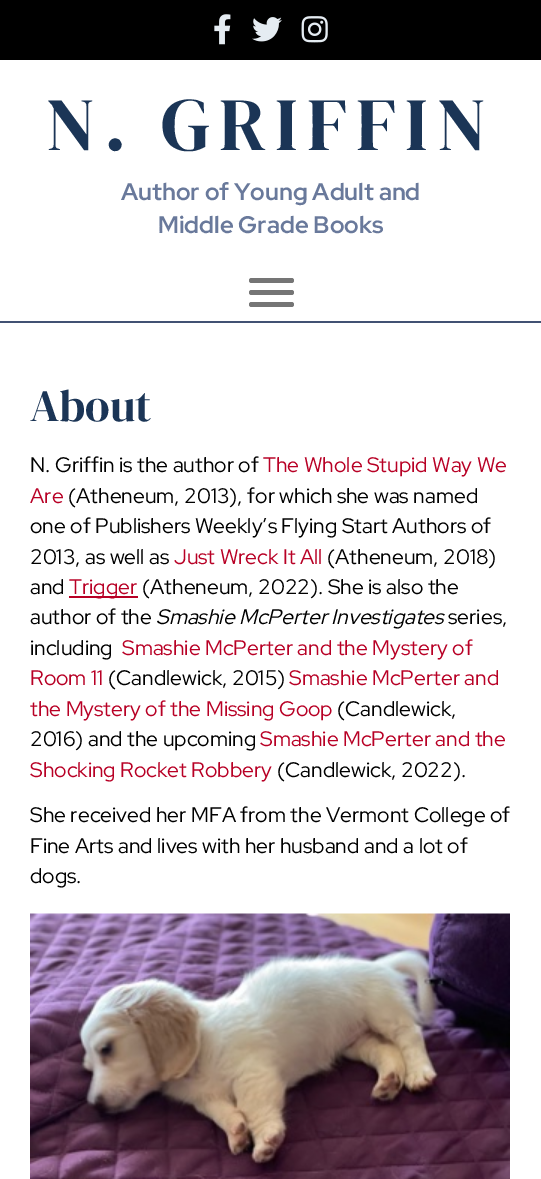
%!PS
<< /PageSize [541 1179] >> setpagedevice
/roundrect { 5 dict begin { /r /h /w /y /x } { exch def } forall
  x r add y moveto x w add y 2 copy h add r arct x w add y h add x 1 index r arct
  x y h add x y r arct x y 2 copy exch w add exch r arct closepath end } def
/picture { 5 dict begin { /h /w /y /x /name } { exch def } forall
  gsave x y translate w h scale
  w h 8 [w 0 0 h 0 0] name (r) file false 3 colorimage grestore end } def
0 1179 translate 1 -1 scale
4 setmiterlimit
1 setgray
0 0 541 1179 rectfill
0 setgray
0 0 541 60 rectfill
(img1.rgb) 214 14 17 31 picture
(img2.rgb) 252 17 30 25 picture
(img3.rgb) 301 16 27 27 picture
0.255 0.318 0.451 setrgbcolor
0 321 541 2 rectfill
/DMSerifDisplay-Regular [75 0 0 -75 0 0] selectfont
0.106 0.208 0.337 setrgbcolor
46 150 moveto 9 0 (N. GRIFFIN) ashow
/RedHatDisplay-Bold [24 0 0 -24 0 0] selectfont
0.412 0.475 0.608 setrgbcolor
121 200 moveto (Author of Young Adult and) show
158 233 moveto (Middle Grade Books) show
0.459 setgray
249 290 45 5 2.5 roundrect fill
249 278 45 5 2.5 roundrect fill
249 302 45 5 2.5 roundrect fill
/DMSerifDisplay-Regular [45 0 0 -45 0 0] selectfont
0.106 0.208 0.337 setrgbcolor
30 421 moveto (About) show
/RedHatDisplay-Regular [21 0 0 -21 0 0] selectfont
0 setgray
30 472 moveto (N. Griffin is the author of) show
0.722 0 0.145 setrgbcolor
263 472 moveto (The Whole Stupid Way We) show
30 503 moveto (Are) show
0 setgray
68 503 moveto (\(Atheneum, 2013\), for which she was named) show
30 533 moveto (one of Publishers Weekly’s Flying Start Authors of) show
30 564 moveto (2013, as well as) show
0.722 0 0.145 setrgbcolor
174 564 moveto (Just Wreck It All) show
0 setgray
327 564 moveto (\(Atheneum, 2018\)) show
30 594 moveto (and) show
0.722 0 0.145 setrgbcolor
69 596 69 2 rectfill
69 594 moveto (Trigger) show
0 setgray
142 594 moveto (\(Atheneum, 2022\). She is also the) show
30 624 moveto (author of the) show
/RedHatDisplay-Italic [21 0 0 -21 0 0] selectfont
156 624 moveto (Smashie McPerter Investigates) show
/RedHatDisplay-Regular [21 0 0 -21 0 0] selectfont
448 624 moveto (series,) show
30 655 moveto (including) show
0.722 0 0.145 setrgbcolor
122 655 moveto (Smashie McPerter and the Mystery of) show
30 685 moveto (Room 11) show
0 setgray
108 685 moveto (\(Candlewick, 2015\)) show
0.722 0 0.145 setrgbcolor
289 685 moveto (Smashie McPerter and) show
30 716 moveto (the Mystery of the Missing Goop) show
0 setgray
337 716 moveto (\(Candlewick,) show
30 746 moveto (2016\) and the upcoming) show
0.722 0 0.145 setrgbcolor
260 746 moveto (Smashie McPerter and the) show
30 777 moveto (Shocking Rocket Robbery) show
0 setgray
277 777 moveto (\(Candlewick, 2022\).) show
30 822 moveto (She received her MFA from the Vermont College of) show
30 853 moveto (Fine Arts and lives with her husband and a lot of) show
30 883 moveto (dogs.) show
(img4.rgb) 30 913 480 266 picture
showpage
